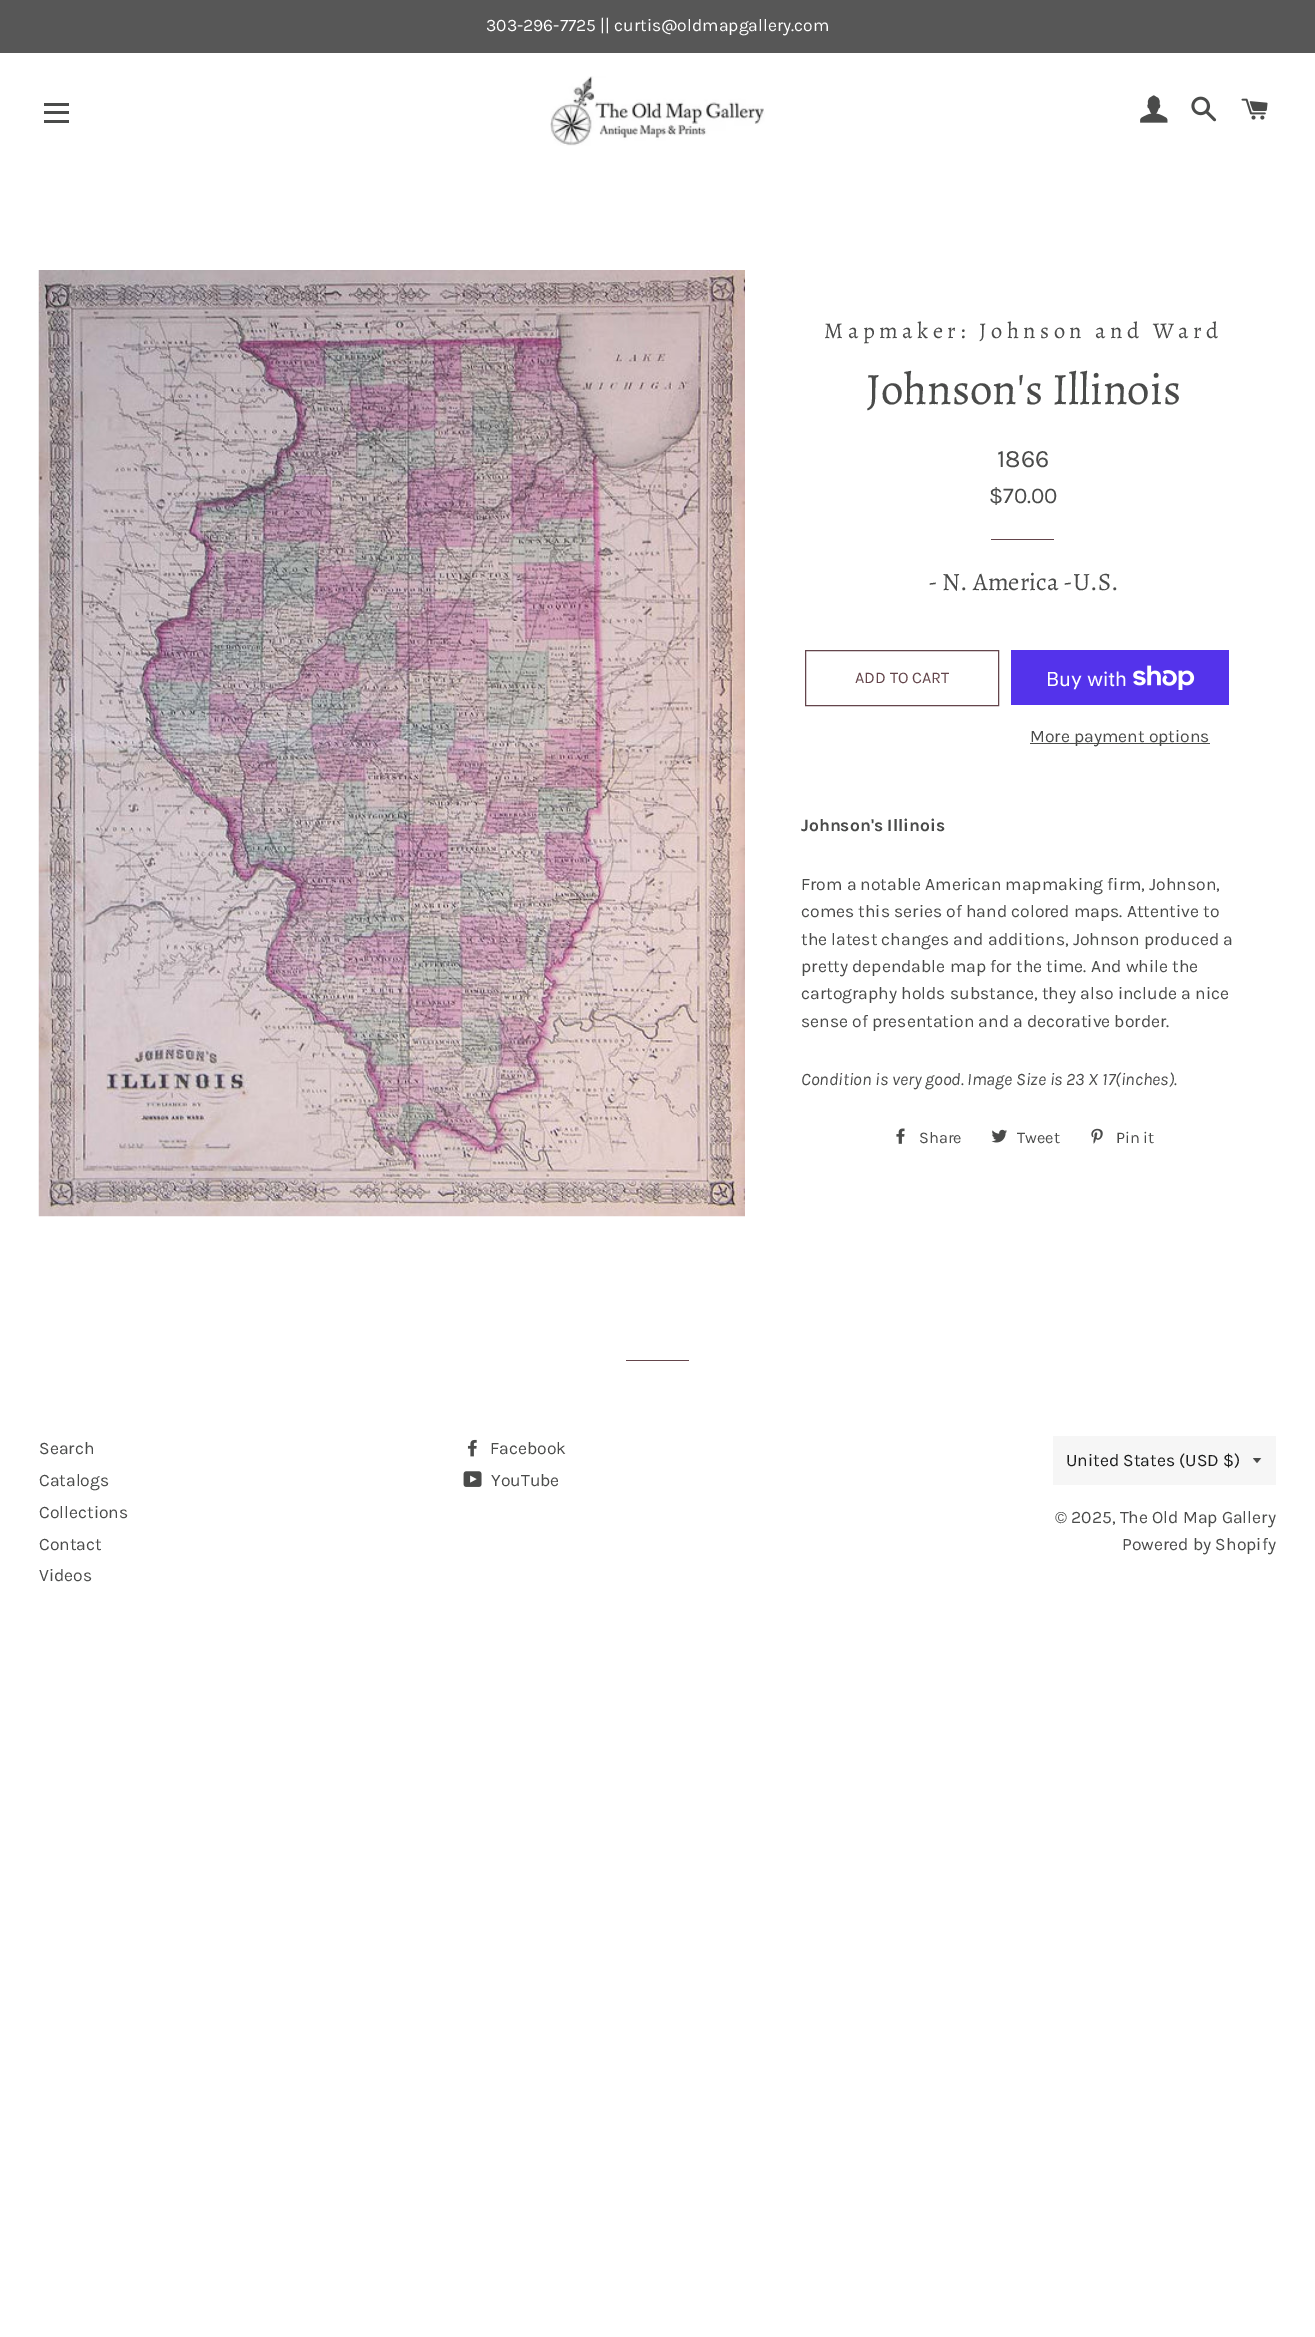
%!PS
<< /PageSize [1315 2337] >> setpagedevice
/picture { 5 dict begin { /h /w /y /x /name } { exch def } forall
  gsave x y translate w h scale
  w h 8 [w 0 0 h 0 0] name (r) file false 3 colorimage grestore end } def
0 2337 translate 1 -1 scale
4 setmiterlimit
1 setgray
0 0 1315 2337 rectfill
0.341 setgray
0 0 1315 53 rectfill
/Karla-Regular [17.5 0 0 -17.5 0 0] selectfont
1 setgray
486 31 moveto (303-296-7725 || curtis@oldmapgallery.com) show
0.29 0.294 0.29 setrgbcolor
44 103 25 3 rectfill
44 111 25 3 rectfill
44 120 25 3 rectfill
(img1.rgb) 550 76 215 70 picture
(img2.rgb) 1140 95 28 28 picture
(img3.rgb) 1191 96 26 26 picture
(img4.rgb) 1241 98 27 22 picture
(img5.rgb) 38 270 707 947 picture
/Alegreya-Regular [22.5 0 0 -22.5 0 0] selectfont
824 338 moveto 4.5 0 (Mapmaker: Johnson and Ward) ashow
/Alegreya-Regular [45 0 0 -45 0 0] selectfont
866 404 moveto (Johnson's Illinois) show
/Karla-Regular [25 0 0 -25 0 0] selectfont
997 467 moveto (1866) show
/Karla-Regular [22.5 0 0 -22.5 0 0] selectfont
989 503 moveto ($70.00) show
0.392 0.271 0.294 setrgbcolor
991 539 63 1 rectfill
/Alegreya-Regular [25 0 0 -25 0 0] selectfont
0.29 0.294 0.29 setrgbcolor
928 590 moveto (- N. America -U.S.) show
0.392 0.271 0.294 setrgbcolor
805.5 650.5 193 55 rectstroke
/Karla-Regular [16.25 0 0 -16.25 0 0] selectfont
855 683 moveto (ADD TO CART) show
0.329 0.2 0.922 setrgbcolor
1011 650 218 55 rectfill
/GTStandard-Regular [20 0 0 -20 0 0] selectfont
1 setgray
1046 686 moveto (Buy with) show
(img6.rgb) 1133 665 62 25 picture
0.29 0.294 0.29 setrgbcolor
1030 743 180 1 rectfill
/Karla-Regular [17.5 0 0 -17.5 0 0] selectfont
1030 742 moveto (More payment options) show
/Karla-Bold [17.5 0 0 -17.5 0 0] selectfont
801 831 moveto (Johnson's Illinois) show
/Karla-Regular [17.5 0 0 -17.5 0 0] selectfont
801 890 moveto (From a notable American mapmaking firm, Johnson,) show
801 917 moveto (comes this series of hand colored maps. Attentive to) show
801 945 moveto (the latest changes and additions, Johnson produced a) show
801 972 moveto (pretty dependable map for the time. And while the) show
801 999 moveto (cartography holds substance, they also include a nice) show
801 1027 moveto (sense of presentation and a decorative border.) show
/Karla-Italic [17.5 0 0 -17.5 0 0] selectfont
801 1085 moveto (Condition is very good. Image Size is 23 X 17\(inches\).) show
(img7.rgb) 896 1128 9 16 picture
/Karla-Regular [16.25 0 0 -16.25 0 0] selectfont
919 1143 moveto (Share) show
(img8.rgb) 991 1129 16 14 picture
1017 1143 moveto (Tweet) show
(img9.rgb) 1091 1128 12 16 picture
1116 1143 moveto (Pin it) show
0.392 0.271 0.294 setrgbcolor
626 1360 63 1 rectfill
/Karla-Regular [17.5 0 0 -17.5 0 0] selectfont
0.29 0.294 0.29 setrgbcolor
39 1454 moveto (Search) show
39 1486 moveto (Catalogs) show
39 1518 moveto (Collections) show
39 1550 moveto (Contact) show
39 1581 moveto (Videos) show
(img10.rgb) 467 1439 10 18 picture
490 1454 moveto (Facebook) show
(img11.rgb) 463 1471 19 16 picture
491 1486 moveto (YouTube) show
0.965 setgray
1053 1436 223 49 rectfill
gsave
1253 1458 10 6 rectclip
0.29 0.294 0.29 setrgbcolor
newpath 1252.5 1457.5 moveto 1257 1463 lineto 1261.5 1457.5 lineto closepath fill
grestore
0.11 0.114 0.114 setrgbcolor
1066 1466 moveto (United States \(USD $\)) show
0.29 0.294 0.29 setrgbcolor
1055 1523 moveto (© 2025, The Old Map Gallery) show
1122 1550 moveto (Powered by Shopify) show
showpage
